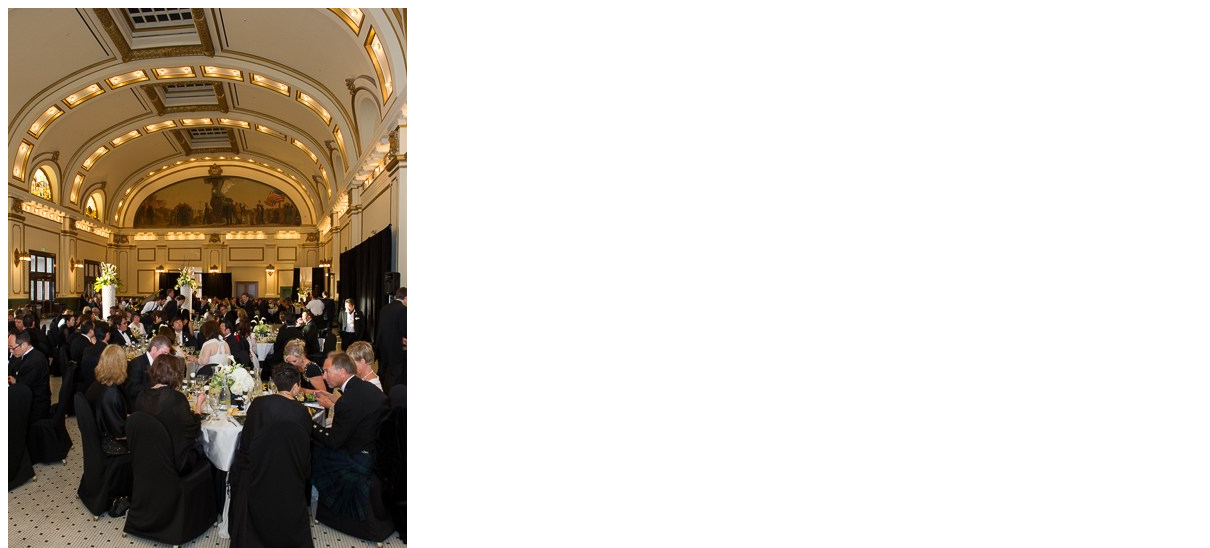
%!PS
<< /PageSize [1210 548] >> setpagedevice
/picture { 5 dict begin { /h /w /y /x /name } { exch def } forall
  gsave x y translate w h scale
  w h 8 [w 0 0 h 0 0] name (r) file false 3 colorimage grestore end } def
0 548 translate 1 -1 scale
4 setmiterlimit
1 setgray
0 0 1210 548 rectfill
(img1.rgb) 8 8 399 540 picture
showpage
